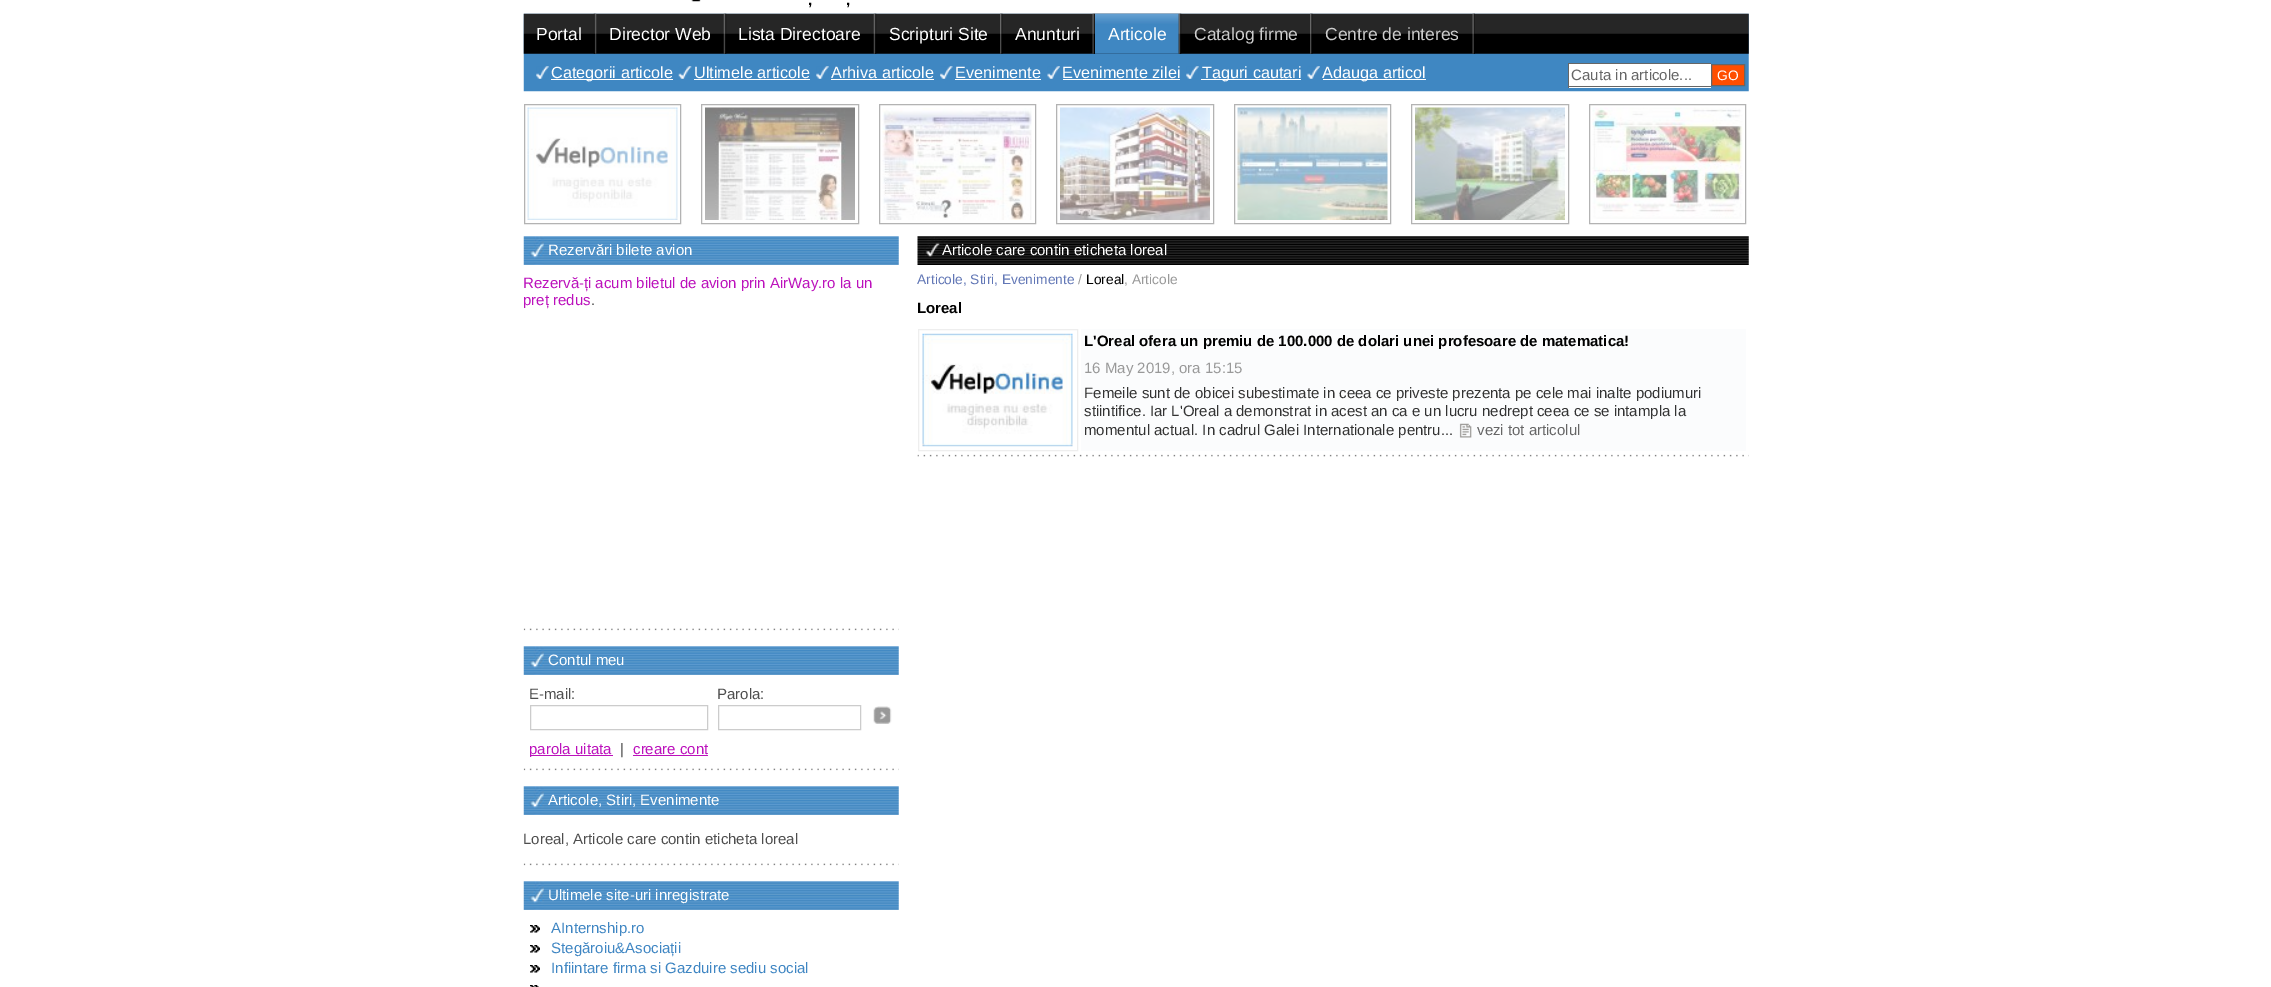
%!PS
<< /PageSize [2271 987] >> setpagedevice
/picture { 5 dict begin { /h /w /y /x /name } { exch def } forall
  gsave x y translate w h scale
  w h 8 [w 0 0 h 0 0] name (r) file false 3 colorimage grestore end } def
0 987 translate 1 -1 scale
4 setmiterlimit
1 setgray
0 0 2271 987 rectfill
(img1.rgb) 691 0 10 2 picture
/LiberationSans-Bold [15 0 0 -15 0 0] selectfont
0 setgray
808 5 moveto (,) show
846 5 moveto (,) show
(img2.rgb) 523 13 1226 79 picture
(img3.rgb) 523 13 1226 41 picture
/LiberationSans-Regular [17.5 0 0 -17.5 0 0] selectfont
1 setgray
536 40 moveto (Portal) show
(img4.rgb) 593 13 4 41 picture
609 40 moveto (Director Web) show
(img5.rgb) 723 13 4 41 picture
738 40 moveto (Lista Directoare) show
(img5.rgb) 873 13 4 41 picture
889 40 moveto (Scripturi Site) show
(img6.rgb) 1000 13 3 41 picture
1015 40 moveto (Anunturi) show
(img7.rgb) 1092 13 3 41 picture
(img8.rgb) 1095 13 84 41 picture
1108 40 moveto (Articole) show
(img9.rgb) 1178 13 4 41 picture
0.8 setgray
1194 40 moveto (Catalog firme) show
(img6.rgb) 1310 13 3 41 picture
1325 40 moveto (Centre de interes) show
(img7.rgb) 1472 13 3 41 picture
(img10.rgb) 536 66 13 13 picture
1 setgray
551 79 122 1 rectfill
/LiberationSans-Regular [16.25 0 0 -16.25 0 0] selectfont
551 78 moveto (Categorii articole) show
(img11.rgb) 678 66 14 13 picture
694 78 moveto (Ultimele articole) show
694 79 116 1 rectfill
(img10.rgb) 816 66 13 13 picture
831 78 moveto (Arhiva articole) show
831 79 103 1 rectfill
(img12.rgb) 940 66 13 13 picture
955 78 moveto (Evenimente) show
955 79 86 1 rectfill
(img13.rgb) 1047 66 13 13 picture
1062 78 moveto (Evenimente zilei) show
1063 79 117 1 rectfill
(img10.rgb) 1186 66 13 13 picture
1201 79 100 1 rectfill
1202 78 moveto (Taguri cautari) show
(img14.rgb) 1307 66 13 13 picture
1323 79 103 1 rectfill
1322 78 moveto (Adauga articol) show
1569 64 142 24 rectfill
0.4 setgray
1568 63 143 1 rectfill
1568 86 143 1 rectfill
1568 63 1 25 rectfill
/LiberationSans-Regular [15 0 0 -15 0 0] selectfont
1571 80 moveto (Cauta in articole...) show
1 0.306 0 setrgbcolor
newpath 1711.5 64.5 moveto 1744.5 64.5 lineto 1744.5 85.5 lineto 1711.5 85.5 lineto closepath gsave fill grestore
0.4 setgray
stroke
/LiberationSans-Regular [13.75 0 0 -13.75 0 0] selectfont
1 setgray
1717 80 moveto (GO) show
0.702 setgray
524.5 104.5 156 119 rectstroke
(img15.rgb) 527 107 151 113 picture
701.5 104.5 157 119 rectstroke
(img16.rgb) 705 107 150 113 picture
879.5 104.5 156 119 rectstroke
(img17.rgb) 882 108 150 112 picture
1056.5 104.5 157 119 rectstroke
(img18.rgb) 1060 107 150 113 picture
1234.5 104.5 156 119 rectstroke
(img19.rgb) 1237 107 151 113 picture
1411.5 104.5 157 119 rectstroke
(img20.rgb) 1415 107 150 113 picture
1589.5 104.5 156 119 rectstroke
(img21.rgb) 1592 107 151 112 picture
(img22.rgb) 523 628 376 3 picture
(img23.rgb) 523 236 376 29 picture
/LiberationSans-Regular [15 0 0 -15 0 0] selectfont
1 setgray
548 255 moveto (Rezervări bilete avion) show
0.737 0.067 0.737 setrgbcolor
523 288 moveto (Rezervă-ți acum biletul de avion prin AirWay.ro la un) show
523 305 moveto (preț redus) show
0.306 setgray
591 305 moveto (.) show
(img22.rgb) 523 768 376 3 picture
(img23.rgb) 523 646 376 29 picture
1 setgray
548 665 moveto (Contul meu) show
0.306 setgray
529 699 moveto (E-mail:) show
0.8 setgray
530.5 705.5 177 24 rectstroke
0.306 setgray
717 699 moveto (Parola:) show
0.8 setgray
718.5 705.5 142 24 rectstroke
(img24.rgb) 873 706 19 18 picture
0.737 0.067 0.737 setrgbcolor
530 755 83 1 rectfill
529 754 moveto (parola uitata) show
0.306 setgray
620 754 moveto (|) show
0.737 0.067 0.737 setrgbcolor
633 754 moveto (creare cont) show
633 755 75 1 rectfill
(img22.rgb) 523 863 376 3 picture
(img23.rgb) 523 786 376 29 picture
1 setgray
548 805 moveto (Articole, Stiri, Evenimente) show
0.306 setgray
523 844 moveto (Loreal, Articole care contin eticheta loreal) show
(img23.rgb) 523 881 376 29 picture
1 setgray
548 900 moveto (Ultimele site-uri inregistrate) show
(img25.rgb) 530 925 10 8 picture
0.247 0.525 0.765 setrgbcolor
551 933 moveto (AInternship.ro) show
(img25.rgb) 530 945 10 8 picture
551 953 moveto (Stegăroiu&Asociații) show
(img25.rgb) 530 965 10 8 picture
551 973 moveto (Infiintare firma si Gazduire sediu social) show
(img26.rgb) 530 985 9 2 picture
(img27.rgb) 917 236 832 29 picture
1 setgray
942 255 moveto (Articole care contin eticheta loreal) show
/LiberationSans-Regular [13.75 0 0 -13.75 0 0] selectfont
0.384 0.467 0.714 setrgbcolor
917 284 moveto (Articole, Stiri, Evenimente) show
0.6 setgray
1078 284 moveto (/) show
0 setgray
1086 284 moveto (Loreal) show
0.6 setgray
1124 284 moveto (, Articole) show
/LiberationSans-Bold [15 0 0 -15 0 0] selectfont
0 setgray
917 313 moveto (Loreal) show
0.933 setgray
918.5 329.5 159 121 rectstroke
(img28.rgb) 922 333 151 114 picture
0.984 0.988 0.992 setrgbcolor
1081 329 665 122 rectfill
0 setgray
1084 346 moveto (L'Oreal ofera un premiu de 100.000 de dolari unei profesoare de matematica!) show
/LiberationSans-Regular [15 0 0 -15 0 0] selectfont
0.6 setgray
1084 373 moveto (16 May 2019, ora 15:15) show
0.2 setgray
1084 398 moveto (Femeile sunt de obicei subestimate in ceea ce priveste prezenta pe cele mai inalte podiumuri) show
1084 416 moveto (stiintifice. Iar L'Oreal a demonstrat in acest an ca e un lucru nedrept ceea ce se intampla la) show
1084 435 moveto (momentul actual. In cadrul Galei Internationale pentru...) show
(img29.rgb) 1459 423 13 15 picture
0.4 setgray
1477 435 moveto (vezi tot articolul) show
(img30.rgb) 917 454 832 3 picture
showpage
